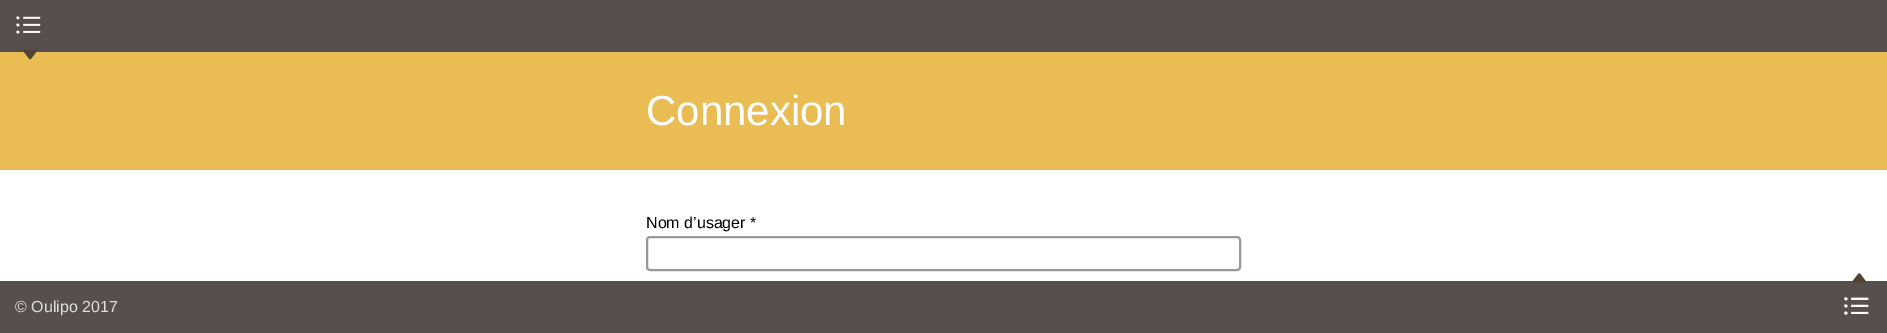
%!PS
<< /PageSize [1887 333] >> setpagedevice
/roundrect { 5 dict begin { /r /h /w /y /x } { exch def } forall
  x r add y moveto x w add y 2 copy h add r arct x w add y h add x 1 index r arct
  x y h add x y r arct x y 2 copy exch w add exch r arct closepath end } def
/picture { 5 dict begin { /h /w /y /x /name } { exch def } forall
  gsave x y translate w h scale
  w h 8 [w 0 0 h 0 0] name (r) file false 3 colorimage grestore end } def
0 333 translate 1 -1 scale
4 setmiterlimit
1 setgray
0 0 1887 333 rectfill
0.341 0.306 0.306 setrgbcolor
0 0 1887 52 rectfill
(img1.rgb) 16 16 25 18 picture
0.914 0.737 0.329 setrgbcolor
0 52 1887 118 rectfill
(img2.rgb) 23 49 15 11 picture
/LiberationSans-Regular [42 0 0 -42 0 0] selectfont
1 setgray
646 125 moveto (Connexion) show
/LiberationSans-Regular [16 0 0 -16 0 0] selectfont
0 setgray
646 228 moveto (Nom d’usager *) show
0.6 setgray
2 setlinewidth
647 237 593 33 3 roundrect stroke
0.341 0.306 0.306 setrgbcolor
0 281 1887 52 rectfill
(img3.rgb) 1852 273 15 10 picture
(img1.rgb) 1844 297 25 18 picture
0.871 setgray
15 312 moveto (© Oulipo 2017) show
(img4.rgb) 1844 297 25 18 picture
showpage
